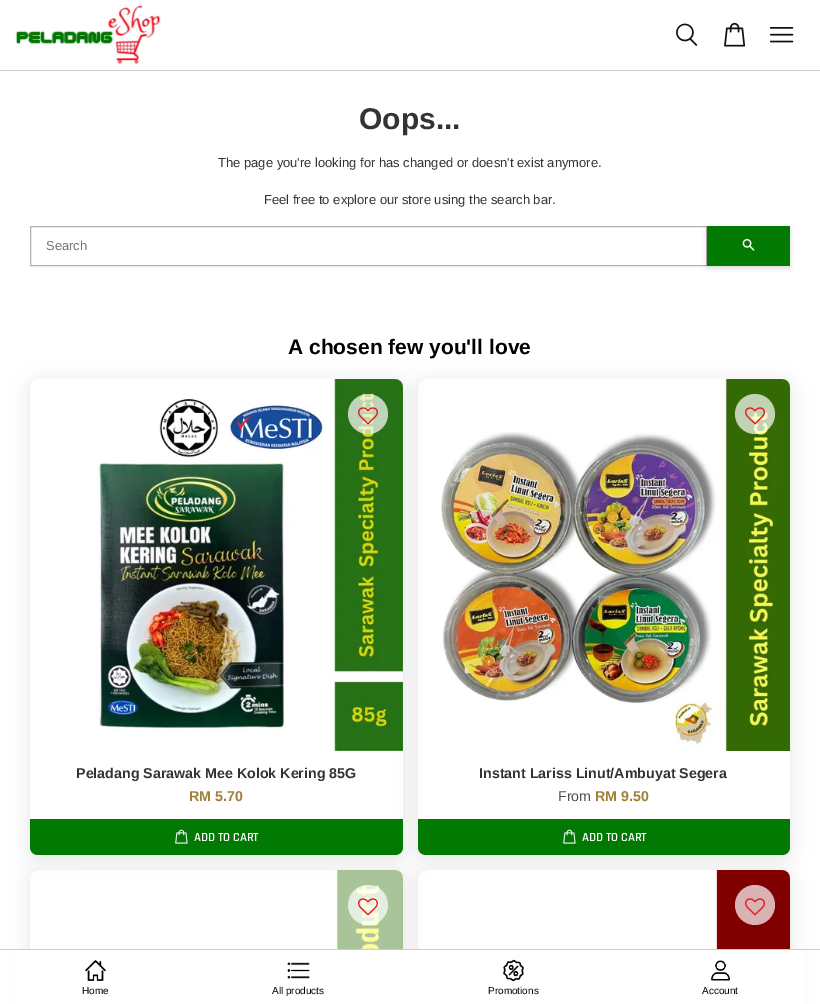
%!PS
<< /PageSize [820 1004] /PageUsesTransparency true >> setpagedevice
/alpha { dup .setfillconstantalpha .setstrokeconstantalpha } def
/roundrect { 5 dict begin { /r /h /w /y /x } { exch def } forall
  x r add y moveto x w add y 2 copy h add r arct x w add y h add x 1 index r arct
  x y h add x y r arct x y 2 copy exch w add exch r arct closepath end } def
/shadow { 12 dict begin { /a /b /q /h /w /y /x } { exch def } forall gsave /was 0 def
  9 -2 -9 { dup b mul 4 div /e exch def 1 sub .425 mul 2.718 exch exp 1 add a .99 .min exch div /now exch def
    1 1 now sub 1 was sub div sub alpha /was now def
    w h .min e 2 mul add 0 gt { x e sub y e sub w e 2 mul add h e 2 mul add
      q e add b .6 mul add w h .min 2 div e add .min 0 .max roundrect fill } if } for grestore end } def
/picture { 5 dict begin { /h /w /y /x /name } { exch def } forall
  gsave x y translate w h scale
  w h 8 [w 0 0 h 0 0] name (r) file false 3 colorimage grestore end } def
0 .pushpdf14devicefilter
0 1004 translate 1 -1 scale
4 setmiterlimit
1 setgray
0 0 820 1004 rectfill
0.8 setgray
0 70 820 1 rectfill
(img1.rgb) 15 5 146 60 picture
(img2.rgb) 676 23 22 23 picture
(img3.rgb) 724 22 22 25 picture
(img4.rgb) 769 27 25 16 picture
/LiberationSans-Bold [30 0 0 -30 0 0] selectfont
0.2 setgray
359 129 moveto (Oops...) show
/LiberationSans-Regular [13 0 0 -13 0 0] selectfont
218 167 moveto (The page you're looking for has changed or doesn't exist anymore.) show
264 204 moveto (Feel free to explore our store using the search bar.) show
0.694 setgray
30.5 226.5 676 39 rectstroke
0.459 setgray
46 250 moveto (Search) show
0 setgray
707 228 83 40 0 2.5 0.15 shadow
0.008 0.475 0.012 setrgbcolor
707 226 83 40 rectfill
(img5.rgb) 742 239 13 12 picture
/LiberationSans-Bold [21 0 0 -21 0 0] selectfont
0 setgray
288 354 moveto (A chosen few you'll love) show
gsave
newpath 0 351 moveto 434 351 lineto 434 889 lineto 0 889 lineto closepath 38 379 moveto 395 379 lineto 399.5 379 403 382.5 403 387 curveto 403 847 lineto 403 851.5 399.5 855 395 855 curveto 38 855 lineto 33.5 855 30 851.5 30 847 curveto 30 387 lineto 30 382.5 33.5 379 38 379 curveto closepath eoclip newpath
30 382 373 476 8 10 0.1 shadow
grestore
(img6.rgb) 98 379 305 372 picture
0.7 alpha
1 setgray
newpath 368 414 20 0 360 arc closepath fill
1 alpha
(img7.rgb) 358 407 20 18 picture
/LiberationSans-Bold [14.25 0 0 -14.25 0 0] selectfont
0.2 setgray
76 778 moveto (Peladang Sarawak Mee Kolok Kering 85G) show
0.62 0.506 0.216 setrgbcolor
189 801 moveto (RM 5.70) show
0.008 0.475 0.012 setrgbcolor
newpath 30 819 moveto 403 819 lineto 403 847 lineto 403 851.5 399.5 855 395 855 curveto 38 855 lineto 33.5 855 30 851.5 30 847 curveto closepath fill
(img8.rgb) 175 829 13 15 picture
/Rajdhani-SemiBold [12.5 0 0 -12.5 0 0] selectfont
1 setgray
194 841 moveto (ADD TO CART) show
gsave
newpath 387 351 moveto 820 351 lineto 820 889 lineto 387 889 lineto closepath 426 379 moveto 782 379 lineto 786.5 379 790 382.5 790 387 curveto 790 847 lineto 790 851.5 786.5 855 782 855 curveto 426 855 lineto 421.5 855 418 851.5 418 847 curveto 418 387 lineto 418 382.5 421.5 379 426 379 curveto closepath eoclip newpath
0 setgray
418 382 372 476 8 10 0.1 shadow
grestore
(img9.rgb) 440 379 350 372 picture
0.7 alpha
newpath 755 414 20 0 360 arc closepath fill
1 alpha
(img10.rgb) 745 407 20 18 picture
/LiberationSans-Bold [14.25 0 0 -14.25 0 0] selectfont
0.2 setgray
479 778 moveto (Instant Lariss Linut/Ambuyat Segera) show
/LiberationSans-Regular [14.25 0 0 -14.25 0 0] selectfont
0.302 setgray
558 801 moveto (From) show
/LiberationSans-Bold [14.25 0 0 -14.25 0 0] selectfont
0.62 0.506 0.216 setrgbcolor
595 801 moveto (RM 9.50) show
0.008 0.475 0.012 setrgbcolor
newpath 418 819 moveto 790 819 lineto 790 847 lineto 790 851.5 786.5 855 782 855 curveto 426 855 lineto 421.5 855 418 851.5 418 847 curveto closepath fill
(img8.rgb) 563 829 13 15 picture
/Rajdhani-SemiBold [12.5 0 0 -12.5 0 0] selectfont
1 setgray
582 841 moveto (ADD TO CART) show
gsave
newpath 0 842 moveto 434 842 lineto 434 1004 lineto 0 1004 lineto closepath 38 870 moveto 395 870 lineto 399.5 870 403 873.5 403 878 curveto 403 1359 lineto 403 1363.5 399.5 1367 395 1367 curveto 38 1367 lineto 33.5 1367 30 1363.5 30 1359 curveto 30 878 lineto 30 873.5 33.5 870 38 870 curveto closepath eoclip newpath
0 setgray
30 873 373 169 8 10 0.1 shadow
grestore
(img11.rgb) 78 870 325 79 picture
0.7 alpha
newpath 368 905 20 0 360 arc closepath fill
1 alpha
(img12.rgb) 358 898 20 18 picture
gsave
newpath 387 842 moveto 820 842 lineto 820 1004 lineto 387 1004 lineto closepath 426 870 moveto 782 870 lineto 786.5 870 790 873.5 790 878 curveto 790 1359 lineto 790 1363.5 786.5 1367 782 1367 curveto 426 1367 lineto 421.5 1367 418 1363.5 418 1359 curveto 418 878 lineto 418 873.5 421.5 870 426 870 curveto closepath eoclip newpath
0 setgray
418 873 372 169 8 10 0.1 shadow
grestore
(img13.rgb) 432 870 358 79 picture
0.7 alpha
newpath 755 905 20 0 360 arc closepath fill
1 alpha
(img14.rgb) 745 898 20 18 picture
17 950 786 54 rectfill
0.8 setgray
0 949 820 1 rectfill
(img15.rgb) 85 960 21 21 picture
/LiberationSans-Regular [10 0 0 -10 0 0] selectfont
0 setgray
82 994 moveto (Home) show
(img16.rgb) 287 962 23 17 picture
272 994 moveto (All products) show
(img17.rgb) 503 959 21 23 picture
488 994 moveto (Promotions) show
(img18.rgb) 711 960 19 21 picture
702 994 moveto (Account) show
.poppdf14devicefilter showpage
